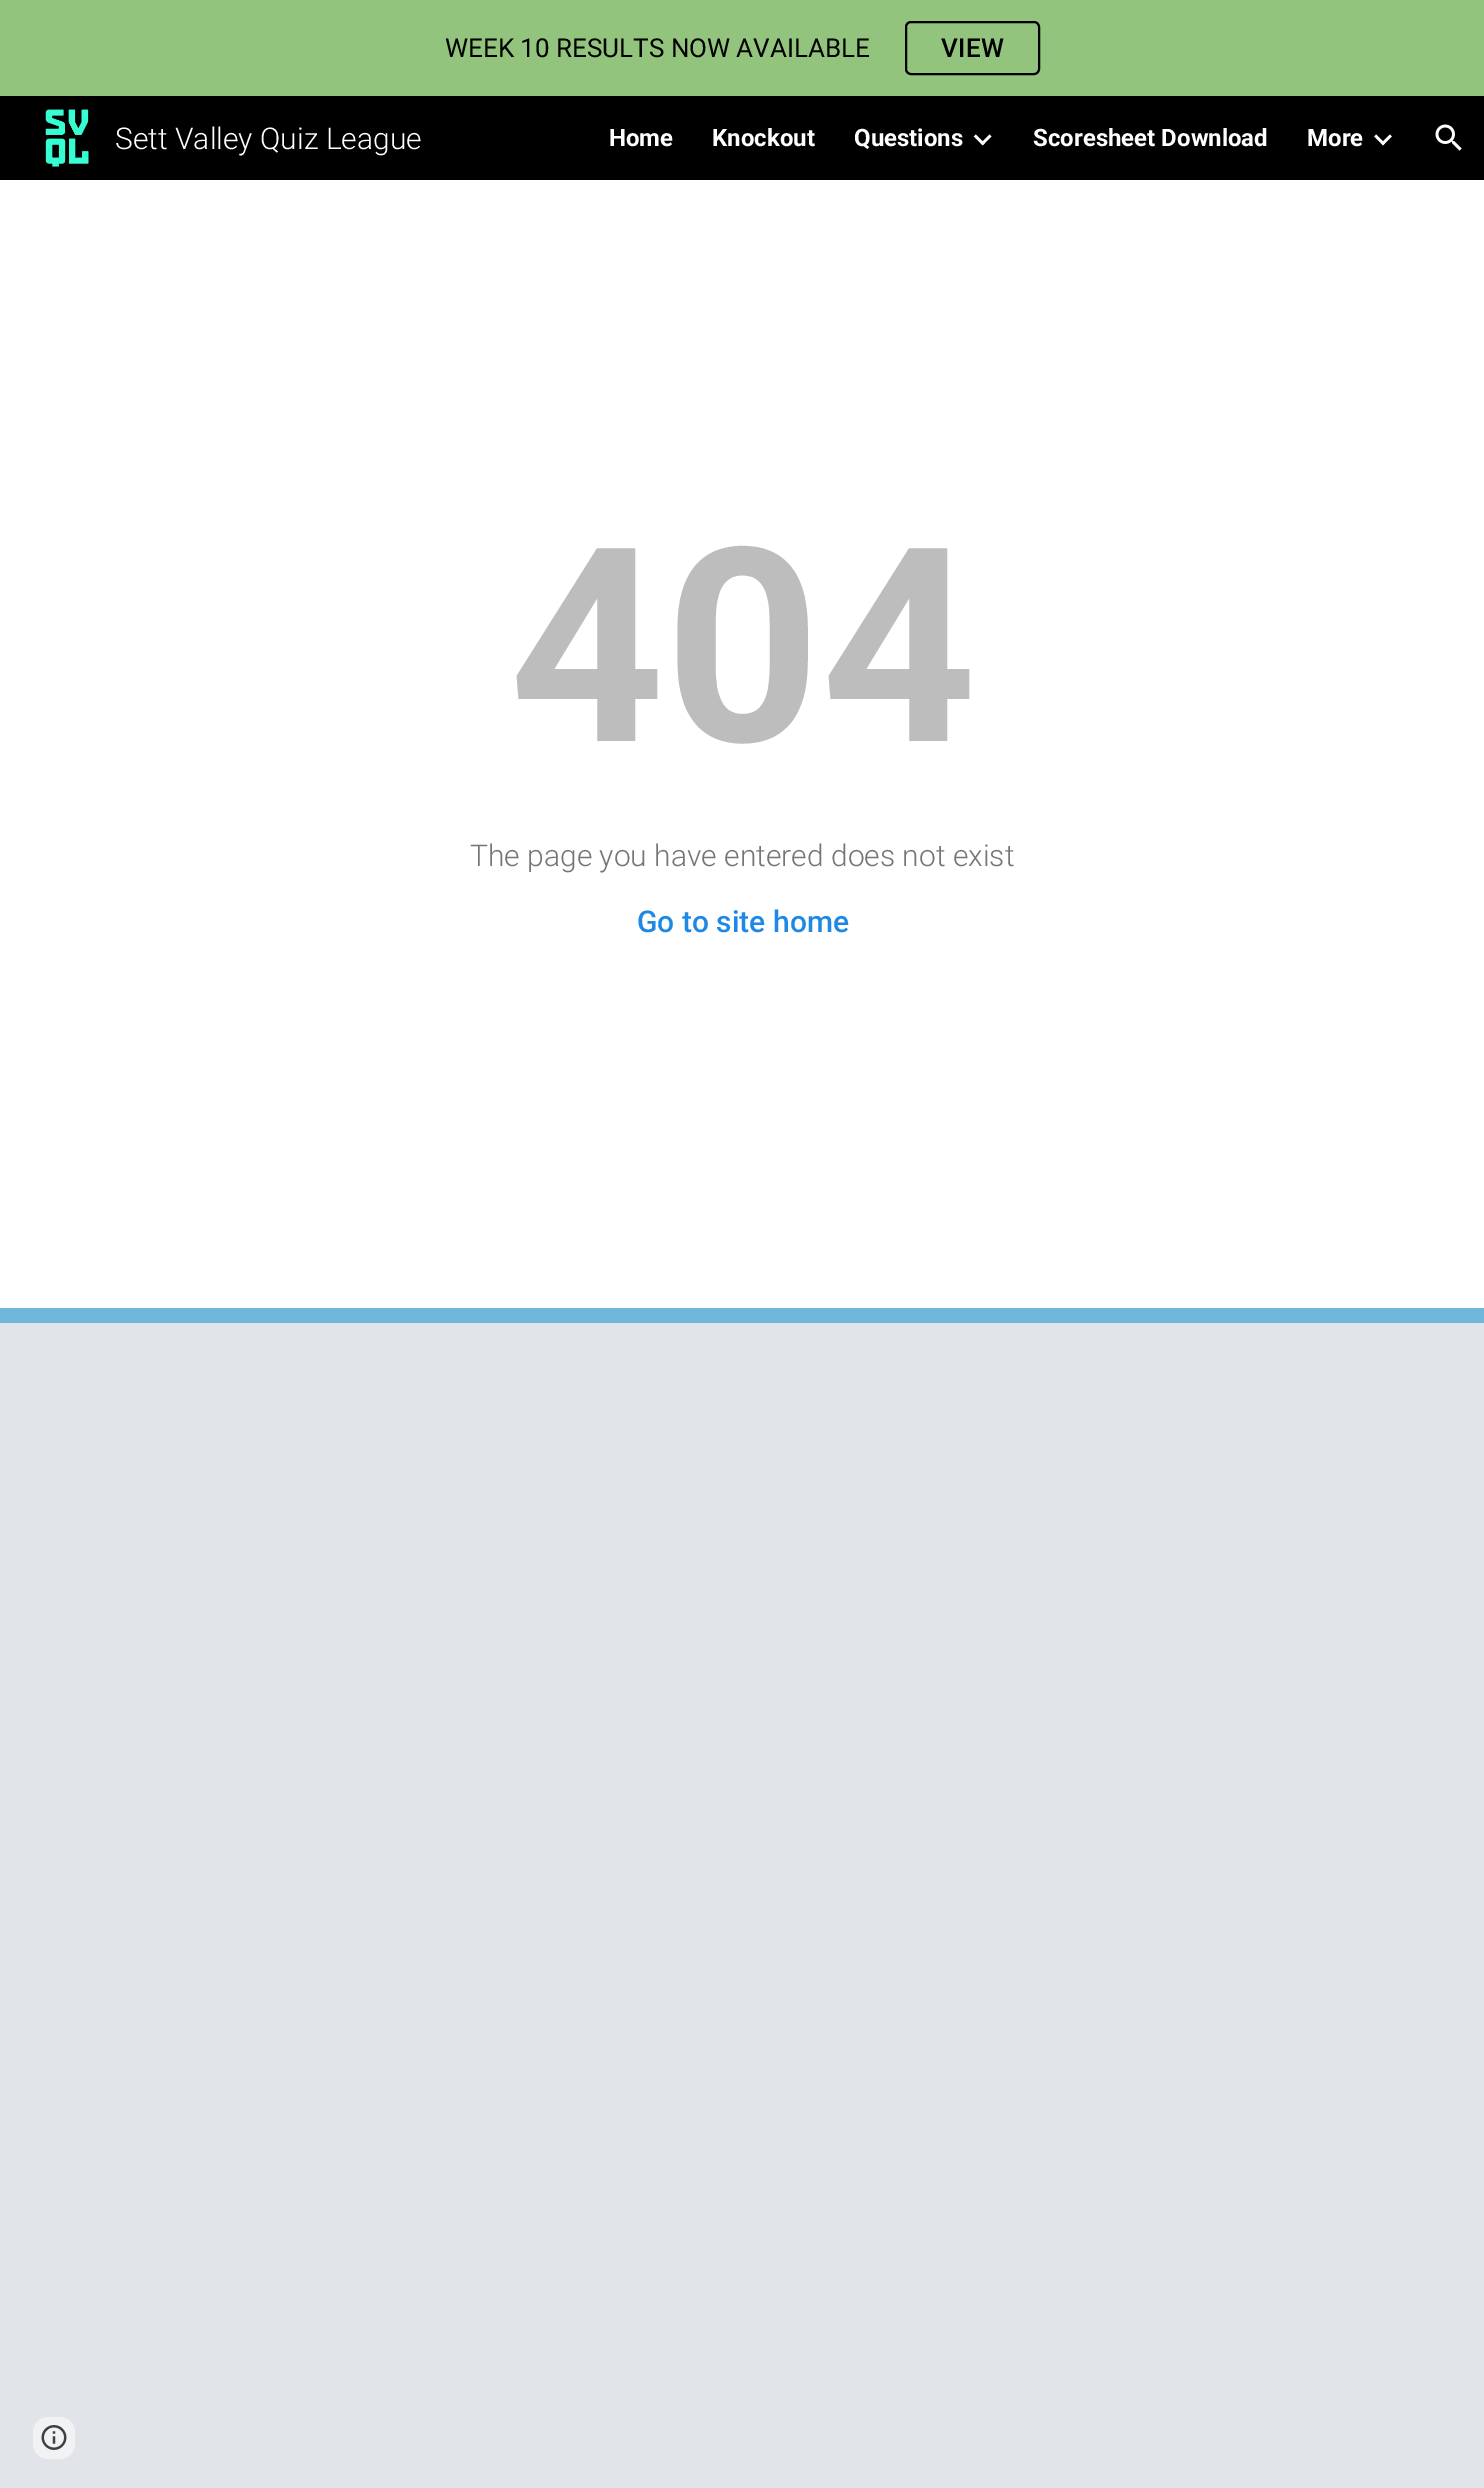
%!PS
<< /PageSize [1484 2488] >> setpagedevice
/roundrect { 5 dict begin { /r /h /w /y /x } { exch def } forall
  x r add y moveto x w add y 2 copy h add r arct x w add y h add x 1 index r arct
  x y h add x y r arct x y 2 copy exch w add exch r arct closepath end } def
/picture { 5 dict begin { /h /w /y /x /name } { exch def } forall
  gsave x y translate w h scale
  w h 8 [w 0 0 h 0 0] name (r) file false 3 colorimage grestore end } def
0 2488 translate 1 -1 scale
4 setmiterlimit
0.882 0.894 0.91 setrgbcolor
0 0 1484 2488 rectfill
0.576 0.769 0.49 setrgbcolor
0 0 1484 96 rectfill
/Roboto-Regular [26 0 0 -26 0 0] selectfont
0 setgray
445 57 moveto (WEEK 10 RESULTS NOW AVAILABLE) show
2 setlinewidth
906 22 133 52 5 roundrect stroke
/Roboto-Medium [26 0 0 -26 0 0] selectfont
941 57 moveto 0.5 0 (VIEW) ashow
0 96 1484 84 rectfill
(img1.rgb) 45 109 44 58 picture
/Roboto-Light [30 0 0 -30 0 0] selectfont
1 setgray
115 149 moveto (Sett Valley Quiz League) show
/Roboto-Bold [24 0 0 -24 0 0] selectfont
609 146 moveto (Home) show
712 146 moveto (Knockout) show
854 146 moveto (Questions) show
(img2.rgb) 973 134 19 12 picture
1033 146 moveto (Scoresheet Download) show
1307 146 moveto (More) show
(img3.rgb) 1374 134 18 12 picture
(img4.rgb) 1435 124 27 27 picture
0 180 1484 1128 rectfill
0.431 0.718 0.847 setrgbcolor
0 1308 1484 15 rectfill
/Roboto-Bold [272 0 0 -272 0 0] selectfont
0.741 setgray
509 741 moveto (404) show
/Roboto-Light [30 0 0 -30 0 0] selectfont
0.459 setgray
470 866 moveto (The page you have entered does not exist) show
/Roboto-Medium [30 0 0 -30 0 0] selectfont
0.118 0.533 0.898 setrgbcolor
637 932 moveto (Go to site home) show
0.941 0.949 0.957 setrgbcolor
33 2417 42 42 15 roundrect fill
(img5.rgb) 41 2425 26 25 picture
showpage
